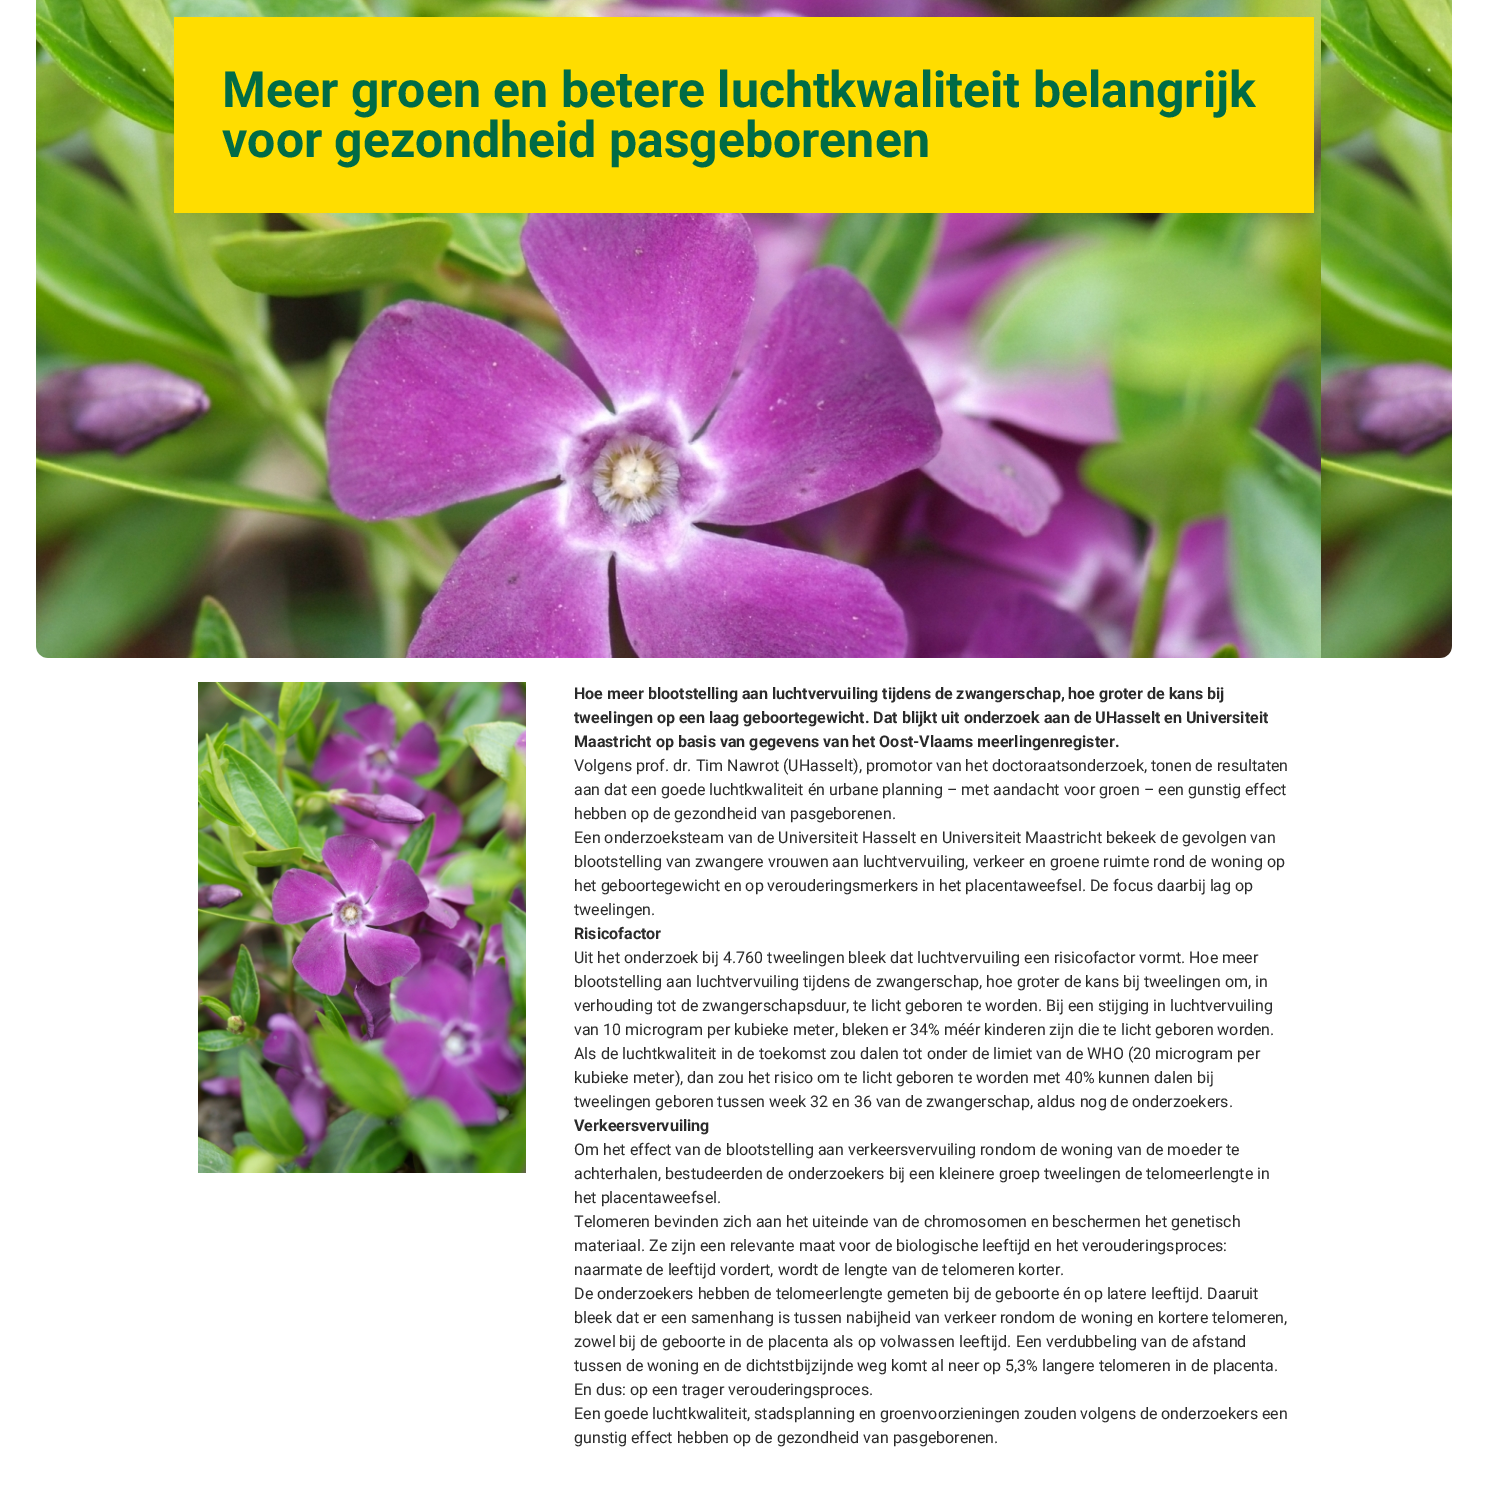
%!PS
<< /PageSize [1488 1508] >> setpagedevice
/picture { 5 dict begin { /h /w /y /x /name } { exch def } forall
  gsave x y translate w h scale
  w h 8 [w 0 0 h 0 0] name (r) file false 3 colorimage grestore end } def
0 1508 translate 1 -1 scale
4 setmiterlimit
1 setgray
0 0 1488 1508 rectfill
(img1.rgb) 36 0 1416 658 picture
1 0.867 0 setrgbcolor
174 17 1140 196 rectfill
/Roboto-Bold [50 0 0 -50 0 0] selectfont
0 0.42 0.275 setrgbcolor
222 107 moveto (Meer groen en betere luchtkwaliteit belangrijk) show
222 157 moveto (voor gezondheid pasgeborenen) show
(img2.rgb) 198 682 328 491 picture
/Roboto-Bold [16 0 0 -16 0 0] selectfont
0.169 setgray
574 699 moveto (Hoe meer blootstelling aan luchtvervuiling tijdens de zwangerschap, hoe groter de kans bij) show
574 723 moveto (tweelingen op een laag geboortegewicht. Dat blijkt uit onderzoek aan de UHasselt en Universiteit) show
574 747 moveto (Maastricht op basis van gegevens van het Oost-Vlaams meerlingenregister.) show
/Roboto-Regular [16 0 0 -16 0 0] selectfont
574 771 moveto (Volgens prof. dr. Tim Nawrot \(UHasselt\), promotor van het doctoraatsonderzoek, tonen de resultaten) show
574 795 moveto (aan dat een goede luchtkwaliteit én urbane planning – met aandacht voor groen – een gunstig effect) show
574 819 moveto (hebben op de gezondheid van pasgeborenen.) show
574 843 moveto (Een onderzoeksteam van de Universiteit Hasselt en Universiteit Maastricht bekeek de gevolgen van) show
574 867 moveto (blootstelling van zwangere vrouwen aan luchtvervuiling, verkeer en groene ruimte rond de woning op) show
574 891 moveto (het geboortegewicht en op verouderingsmerkers in het placentaweefsel. De focus daarbij lag op) show
574 915 moveto (tweelingen.) show
/Roboto-Bold [16 0 0 -16 0 0] selectfont
574 939 moveto (Risicofactor) show
/Roboto-Regular [16 0 0 -16 0 0] selectfont
574 963 moveto (Uit het onderzoek bij 4.760 tweelingen bleek dat luchtvervuiling een risicofactor vormt. Hoe meer) show
574 987 moveto (blootstelling aan luchtvervuiling tijdens de zwangerschap, hoe groter de kans bij tweelingen om, in) show
574 1011 moveto (verhouding tot de zwangerschapsduur, te licht geboren te worden. Bij een stijging in luchtvervuiling) show
574 1035 moveto (van 10 microgram per kubieke meter, bleken er 34% méér kinderen zijn die te licht geboren worden.) show
574 1059 moveto (Als de luchtkwaliteit in de toekomst zou dalen tot onder de limiet van de WHO \(20 microgram per) show
574 1083 moveto (kubieke meter\), dan zou het risico om te licht geboren te worden met 40% kunnen dalen bij) show
574 1107 moveto (tweelingen geboren tussen week 32 en 36 van de zwangerschap, aldus nog de onderzoekers.) show
/Roboto-Bold [16 0 0 -16 0 0] selectfont
574 1131 moveto (Verkeersvervuiling) show
/Roboto-Regular [16 0 0 -16 0 0] selectfont
574 1155 moveto (Om het effect van de blootstelling aan verkeersvervuiling rondom de woning van de moeder te) show
574 1179 moveto (achterhalen, bestudeerden de onderzoekers bij een kleinere groep tweelingen de telomeerlengte in) show
574 1203 moveto (het placentaweefsel.) show
574 1227 moveto (Telomeren bevinden zich aan het uiteinde van de chromosomen en beschermen het genetisch) show
574 1251 moveto (materiaal. Ze zijn een relevante maat voor de biologische leeftijd en het verouderingsproces:) show
574 1275 moveto (naarmate de leeftijd vordert, wordt de lengte van de telomeren korter.) show
574 1299 moveto (De onderzoekers hebben de telomeerlengte gemeten bij de geboorte én op latere leeftijd. Daaruit) show
574 1323 moveto (bleek dat er een samenhang is tussen nabijheid van verkeer rondom de woning en kortere telomeren,) show
574 1347 moveto (zowel bij de geboorte in de placenta als op volwassen leeftijd. Een verdubbeling van de afstand) show
574 1371 moveto (tussen de woning en de dichtstbijzijnde weg komt al neer op 5,3% langere telomeren in de placenta.) show
574 1395 moveto (En dus: op een trager verouderingsproces.) show
574 1419 moveto (Een goede luchtkwaliteit, stadsplanning en groenvoorzieningen zouden volgens de onderzoekers een) show
574 1443 moveto (gunstig effect hebben op de gezondheid van pasgeborenen.) show
showpage
